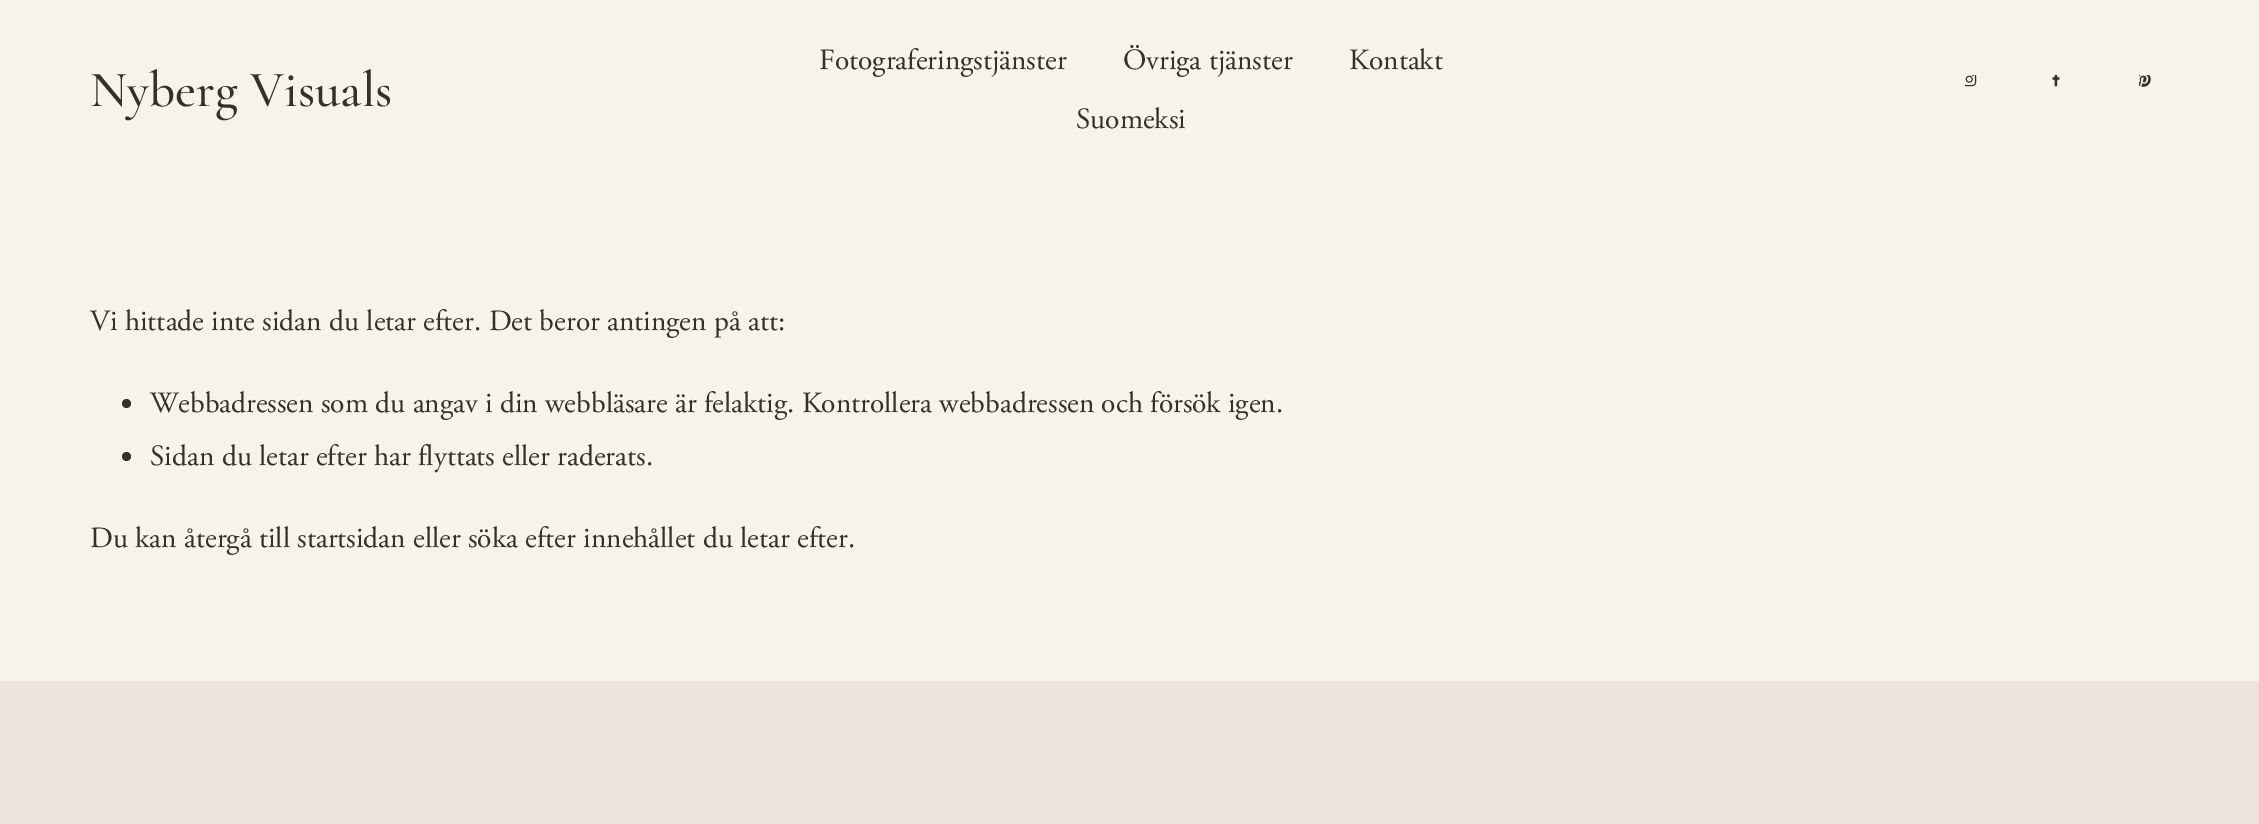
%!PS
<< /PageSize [2259 824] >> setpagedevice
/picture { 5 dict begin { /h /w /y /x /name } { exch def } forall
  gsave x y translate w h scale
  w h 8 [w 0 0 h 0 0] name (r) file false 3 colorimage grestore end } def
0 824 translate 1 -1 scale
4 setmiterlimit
0.965 0.953 0.925 setrgbcolor
0 0 2259 824 rectfill
/CormorantGaramond-Medium [51 0 0 -51 0 0] selectfont
0.212 0.188 0.165 setrgbcolor
90 106 moveto (Nyberg Visuals) show
/AdobeGaramond-Regular [29.4 0 0 -29.4 0 0] selectfont
819 69 moveto (Fotograferingstjänster) show
1123 69 moveto (Övriga tjänster) show
1349 69 moveto (Kontakt) show
1076 128 moveto (Suomeksi) show
(img1.rgb) 1965 75 12 12 picture
(img2.rgb) 2052 75 8 12 picture
(img3.rgb) 2139 75 12 12 picture
90 330 moveto (Vi hittade inte sidan du letar efter. Det beror antingen på att:) show
newpath 126.5 403.5 4.5 0 360 arc closepath fill
150 412 moveto (Webbadressen som du angav i din webbläsare är felaktig. Kontrollera webbadressen och försök igen.) show
newpath 126.5 456.5 4.5 0 360 arc closepath fill
150 465 moveto (Sidan du letar efter har flyttats eller raderats.) show
90 547 moveto (Du kan återgå till startsidan eller söka efter innehållet du letar efter.) show
0.925 0.894 0.855 setrgbcolor
0 681 2259 143 rectfill
showpage
